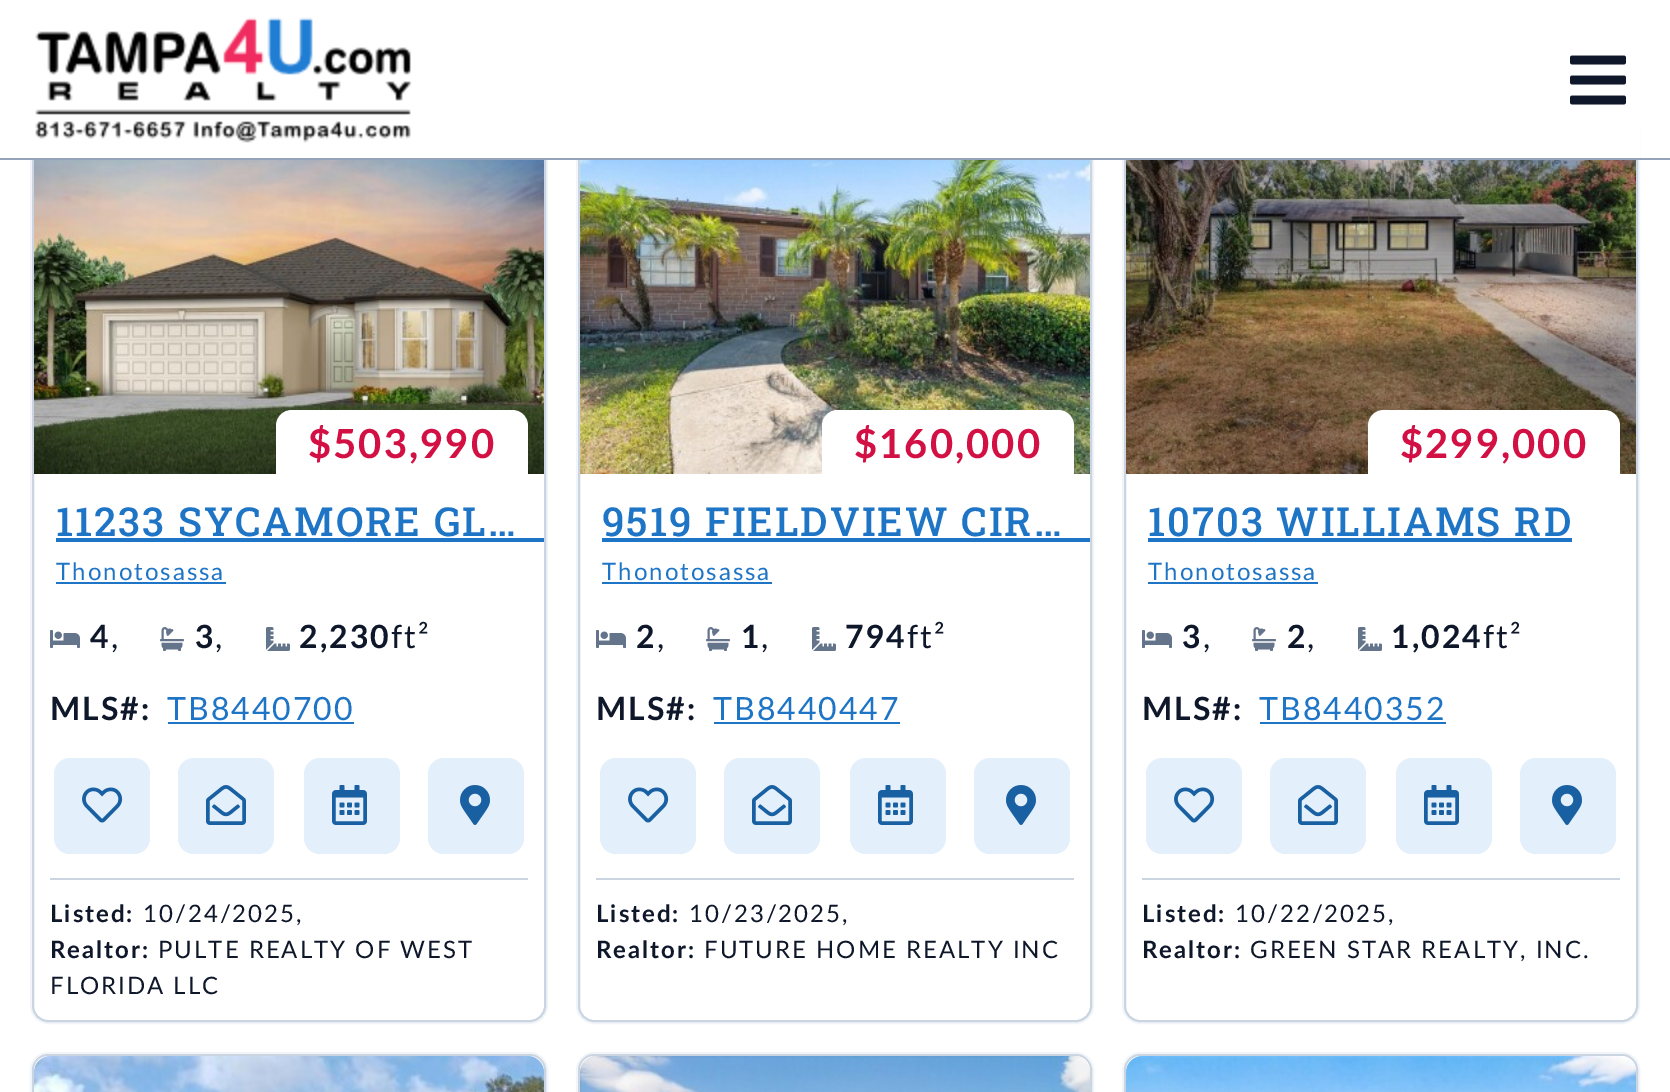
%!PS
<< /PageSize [1670 1092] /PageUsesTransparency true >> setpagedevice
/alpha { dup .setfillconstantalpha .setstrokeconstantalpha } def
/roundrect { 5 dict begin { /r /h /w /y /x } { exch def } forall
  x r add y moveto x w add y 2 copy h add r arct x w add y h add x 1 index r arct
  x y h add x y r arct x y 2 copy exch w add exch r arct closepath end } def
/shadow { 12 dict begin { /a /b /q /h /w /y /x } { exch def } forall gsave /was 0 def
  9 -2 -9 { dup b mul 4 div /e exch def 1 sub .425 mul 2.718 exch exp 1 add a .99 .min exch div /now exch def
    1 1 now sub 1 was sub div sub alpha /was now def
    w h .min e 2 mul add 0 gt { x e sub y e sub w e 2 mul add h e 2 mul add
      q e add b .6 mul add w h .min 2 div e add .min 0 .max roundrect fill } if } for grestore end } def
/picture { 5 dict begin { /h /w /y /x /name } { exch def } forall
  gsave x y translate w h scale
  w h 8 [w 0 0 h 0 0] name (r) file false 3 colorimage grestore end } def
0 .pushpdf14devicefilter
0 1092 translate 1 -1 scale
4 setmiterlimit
1 setgray
0 0 1670 1092 rectfill
0.945 0.961 0.976 setrgbcolor
2 setlinewidth
31 111 516 912 17 roundrect stroke
0.796 0.835 0.882 setrgbcolor
33 113 512 908 15 roundrect stroke
0.945 0.961 0.976 setrgbcolor
577 111 516 912 17 roundrect stroke
0.796 0.835 0.882 setrgbcolor
579 113 512 908 15 roundrect stroke
0.945 0.961 0.976 setrgbcolor
1123 111 516 912 17 roundrect stroke
0.796 0.835 0.882 setrgbcolor
1125 113 512 908 15 roundrect stroke
1 setgray
30 110 1610 48 rectfill
0.58 0.639 0.722 setrgbcolor
0 158 1670 2 rectfill
(img1.rgb) 35 17 377 126 picture
(img2.rgb) 1570 55 56 50 picture
(img3.rgb) 34 160 510 314 picture
1 setgray
newpath 292 410 moveto 512 410 lineto 521 410 528 417 528 426 curveto 528 474 lineto 276 474 lineto 276 426 lineto 276 417 283 410 292 410 curveto closepath fill
/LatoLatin-Bold [40 0 0 -40 0 0] selectfont
0.824 0.063 0.263 setrgbcolor
308 458 moveto 2 0 ($503,990) ashow
/RobotoSlab-Medium [40 0 0 -40 0 0] selectfont
0.118 0.455 0.773 setrgbcolor
56 536 moveto 2 0 (11233 SYCAMORE GL…) ashow
56 538 488 4 rectfill
/LatoLatin-Regular [24 0 0 -24 0 0] selectfont
56 580 moveto 2 0 (Thonotosassa) ashow
56 582 170 2 rectfill
(img4.rgb) 50 630 30 18 picture
/LatoLatin-Bold [32 0 0 -32 0 0] selectfont
0.059 0.09 0.165 setrgbcolor
90 648 moveto 2 0 (4) ashow
/LatoLatin-Regular [32 0 0 -32 0 0] selectfont
111 648 moveto 2 0 (,) ashow
(img5.rgb) 160 627 24 24 picture
/LatoLatin-Bold [32 0 0 -32 0 0] selectfont
195 648 moveto 2 0 (3) ashow
/LatoLatin-Regular [32 0 0 -32 0 0] selectfont
215 648 moveto 2 0 (,) ashow
(img6.rgb) 266 627 24 24 picture
/LatoLatin-Bold [32 0 0 -32 0 0] selectfont
299 648 moveto 2 0 (2,230) ashow
/LatoLatin-Regular [32 0 0 -32 0 0] selectfont
391 648 moveto 2 0 (ft²) ashow
/LatoLatin-Bold [32 0 0 -32 0 0] selectfont
50 720 moveto 2 0 (MLS#:) ashow
/LatoLatin-Regular [32 0 0 -32 0 0] selectfont
0.118 0.455 0.773 setrgbcolor
167 720 moveto 2 0 (TB8440700) ashow
168 722 186 2 rectfill
0.89 0.937 0.98 setrgbcolor
54 758 96 96 16 roundrect fill
(img7.rgb) 82 787 41 36 picture
178 758 96 96 16 roundrect fill
(img8.rgb) 206 785 40 40 picture
304 758 96 96 16 roundrect fill
(img9.rgb) 332 785 35 40 picture
428 758 96 96 16 roundrect fill
(img10.rgb) 460 785 30 40 picture
0.796 0.835 0.882 setrgbcolor
50 878 478 2 rectfill
/LatoLatin-Bold [24 0 0 -24 0 0] selectfont
0.059 0.09 0.165 setrgbcolor
50 922 moveto 2 0 (Listed:) ashow
/LatoLatin-Regular [24 0 0 -24 0 0] selectfont
143 922 moveto 2 0 (10/24/2025,) ashow
/LatoLatin-Bold [24 0 0 -24 0 0] selectfont
50 958 moveto 2 0 (Realtor:) ashow
/LatoLatin-Regular [24 0 0 -24 0 0] selectfont
158 958 moveto 2 0 (PULTE REALTY OF WEST) ashow
50 994 moveto 2 0 (FLORIDA LLC) ashow
(img11.rgb) 580 160 510 314 picture
1 setgray
newpath 838 410 moveto 1058 410 lineto 1067 410 1074 417 1074 426 curveto 1074 474 lineto 822 474 lineto 822 426 lineto 822 417 829 410 838 410 curveto closepath fill
/LatoLatin-Bold [40 0 0 -40 0 0] selectfont
0.824 0.063 0.263 setrgbcolor
854 458 moveto 2 0 ($160,000) ashow
/RobotoSlab-Medium [40 0 0 -40 0 0] selectfont
0.118 0.455 0.773 setrgbcolor
602 536 moveto 2 0 (9519 FIELDVIEW CIR…) ashow
602 538 488 4 rectfill
/LatoLatin-Regular [24 0 0 -24 0 0] selectfont
602 580 moveto 2 0 (Thonotosassa) ashow
602 582 170 2 rectfill
(img4.rgb) 596 630 30 18 picture
/LatoLatin-Bold [32 0 0 -32 0 0] selectfont
0.059 0.09 0.165 setrgbcolor
636 648 moveto 2 0 (2) ashow
/LatoLatin-Regular [32 0 0 -32 0 0] selectfont
657 648 moveto 2 0 (,) ashow
(img5.rgb) 706 627 24 24 picture
/LatoLatin-Bold [32 0 0 -32 0 0] selectfont
741 648 moveto 2 0 (1) ashow
/LatoLatin-Regular [32 0 0 -32 0 0] selectfont
761 648 moveto 2 0 (,) ashow
(img6.rgb) 812 627 24 24 picture
/LatoLatin-Bold [32 0 0 -32 0 0] selectfont
845 648 moveto 2 0 (794) ashow
/LatoLatin-Regular [32 0 0 -32 0 0] selectfont
907 648 moveto 2 0 (ft²) ashow
/LatoLatin-Bold [32 0 0 -32 0 0] selectfont
596 720 moveto 2 0 (MLS#:) ashow
/LatoLatin-Regular [32 0 0 -32 0 0] selectfont
0.118 0.455 0.773 setrgbcolor
713 720 moveto 2 0 (TB8440447) ashow
714 722 186 2 rectfill
0.89 0.937 0.98 setrgbcolor
600 758 96 96 16 roundrect fill
(img7.rgb) 628 787 41 36 picture
724 758 96 96 16 roundrect fill
(img8.rgb) 752 785 40 40 picture
850 758 96 96 16 roundrect fill
(img9.rgb) 878 785 35 40 picture
974 758 96 96 16 roundrect fill
(img10.rgb) 1006 785 30 40 picture
0.796 0.835 0.882 setrgbcolor
596 878 478 2 rectfill
/LatoLatin-Bold [24 0 0 -24 0 0] selectfont
0.059 0.09 0.165 setrgbcolor
596 922 moveto 2 0 (Listed:) ashow
/LatoLatin-Regular [24 0 0 -24 0 0] selectfont
689 922 moveto 2 0 (10/23/2025,) ashow
/LatoLatin-Bold [24 0 0 -24 0 0] selectfont
596 958 moveto 2 0 (Realtor:) ashow
/LatoLatin-Regular [24 0 0 -24 0 0] selectfont
704 958 moveto 2 0 (FUTURE HOME REALTY INC) ashow
(img12.rgb) 1126 160 510 314 picture
1 setgray
newpath 1384 410 moveto 1604 410 lineto 1613 410 1620 417 1620 426 curveto 1620 474 lineto 1368 474 lineto 1368 426 lineto 1368 417 1375 410 1384 410 curveto closepath fill
/LatoLatin-Bold [40 0 0 -40 0 0] selectfont
0.824 0.063 0.263 setrgbcolor
1400 458 moveto 2 0 ($299,000) ashow
/RobotoSlab-Medium [40 0 0 -40 0 0] selectfont
0.118 0.455 0.773 setrgbcolor
1148 536 moveto 2 0 (10703 WILLIAMS RD) ashow
1148 538 424 4 rectfill
/LatoLatin-Regular [24 0 0 -24 0 0] selectfont
1148 580 moveto 2 0 (Thonotosassa) ashow
1148 582 170 2 rectfill
(img4.rgb) 1142 630 30 18 picture
/LatoLatin-Bold [32 0 0 -32 0 0] selectfont
0.059 0.09 0.165 setrgbcolor
1182 648 moveto 2 0 (3) ashow
/LatoLatin-Regular [32 0 0 -32 0 0] selectfont
1203 648 moveto 2 0 (,) ashow
(img5.rgb) 1252 627 24 24 picture
/LatoLatin-Bold [32 0 0 -32 0 0] selectfont
1287 648 moveto 2 0 (2) ashow
/LatoLatin-Regular [32 0 0 -32 0 0] selectfont
1307 648 moveto 2 0 (,) ashow
(img6.rgb) 1358 627 24 24 picture
/LatoLatin-Bold [32 0 0 -32 0 0] selectfont
1391 648 moveto 2 0 (1,024) ashow
/LatoLatin-Regular [32 0 0 -32 0 0] selectfont
1483 648 moveto 2 0 (ft²) ashow
/LatoLatin-Bold [32 0 0 -32 0 0] selectfont
1142 720 moveto 2 0 (MLS#:) ashow
/LatoLatin-Regular [32 0 0 -32 0 0] selectfont
0.118 0.455 0.773 setrgbcolor
1259 720 moveto 2 0 (TB8440352) ashow
1260 722 186 2 rectfill
0.89 0.937 0.98 setrgbcolor
1146 758 96 96 16 roundrect fill
(img7.rgb) 1174 787 41 36 picture
1270 758 96 96 16 roundrect fill
(img8.rgb) 1298 785 40 40 picture
1396 758 96 96 16 roundrect fill
(img9.rgb) 1424 785 35 40 picture
1520 758 96 96 16 roundrect fill
(img10.rgb) 1552 785 30 40 picture
0.796 0.835 0.882 setrgbcolor
1142 878 478 2 rectfill
/LatoLatin-Bold [24 0 0 -24 0 0] selectfont
0.059 0.09 0.165 setrgbcolor
1142 922 moveto 2 0 (Listed:) ashow
/LatoLatin-Regular [24 0 0 -24 0 0] selectfont
1235 922 moveto 2 0 (10/22/2025,) ashow
/LatoLatin-Bold [24 0 0 -24 0 0] selectfont
1142 958 moveto 2 0 (Realtor:) ashow
/LatoLatin-Regular [24 0 0 -24 0 0] selectfont
1250 958 moveto 2 0 (GREEN STAR REALTY, INC.) ashow
0.945 0.961 0.976 setrgbcolor
31 1053 516 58 17 roundrect stroke
32 1056 514 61 16 3 1 shadow
0.796 0.835 0.882 setrgbcolor
33 1055 512 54 15 roundrect stroke
0.973 0.98 0.988 setrgbcolor
34 1056 510 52 16 roundrect fill
(img13.rgb) 34 1056 510 36 picture
0.945 0.961 0.976 setrgbcolor
577 1053 516 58 17 roundrect stroke
578 1056 514 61 16 3 1 shadow
0.796 0.835 0.882 setrgbcolor
579 1055 512 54 15 roundrect stroke
0.973 0.98 0.988 setrgbcolor
580 1056 510 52 16 roundrect fill
(img14.rgb) 580 1056 510 36 picture
0.945 0.961 0.976 setrgbcolor
1123 1053 516 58 17 roundrect stroke
1124 1056 514 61 16 3 1 shadow
0.796 0.835 0.882 setrgbcolor
1125 1055 512 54 15 roundrect stroke
0.973 0.98 0.988 setrgbcolor
1126 1056 510 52 16 roundrect fill
(img15.rgb) 1126 1056 510 36 picture
.poppdf14devicefilter showpage
